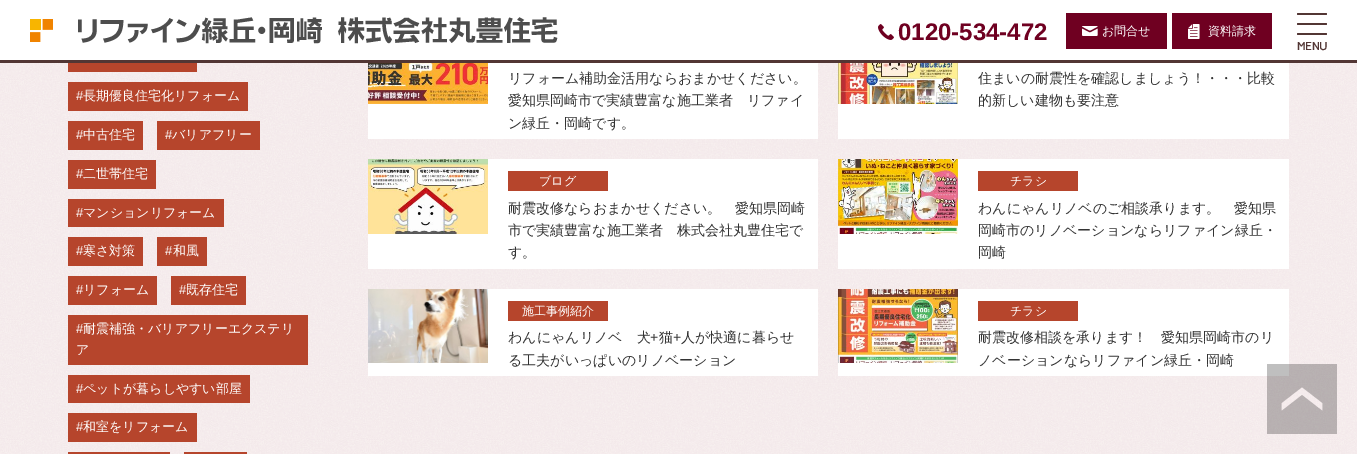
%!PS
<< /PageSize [1357 454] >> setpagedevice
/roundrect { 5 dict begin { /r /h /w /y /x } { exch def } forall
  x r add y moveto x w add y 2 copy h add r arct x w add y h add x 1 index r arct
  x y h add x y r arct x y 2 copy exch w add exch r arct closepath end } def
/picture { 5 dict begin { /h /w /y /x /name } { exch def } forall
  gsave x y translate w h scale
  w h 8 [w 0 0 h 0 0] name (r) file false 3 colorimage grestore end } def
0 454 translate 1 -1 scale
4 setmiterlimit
1 setgray
0 0 1357 454 rectfill
(img1.rgb) 0 63 1357 391 picture
0.322 0.212 0.204 setrgbcolor
0 60 1357 3 rectfill
(img2.rgb) 30 19 23 23 picture
(img3.rgb) 78 17 480 27 picture
(img4.rgb) 878 24 16 16 picture
/LiberationSans-Bold [24 0 0 -24 0 0] selectfont
0.435 0 0.129 setrgbcolor
898 40 moveto (0120-534-472) show
1066 13 101 36 rectfill
(img5.rgb) 1082 26 16 10 picture
/WenQuanYiZenHei-Medium [12 0 0 -12 0 0] selectfont
1 setgray
1102 35 moveto (お問合せ) show
0.435 0 0.129 setrgbcolor
1172 13 100 36 rectfill
(img6.rgb) 1188 24 12 15 picture
1 setgray
1208 35 moveto (資料請求) show
0.322 0.212 0.204 setrgbcolor
1297 13 30 2 1 roundrect fill
1297 23 30 2 1 roundrect fill
1297 33 30 2 1 roundrect fill
/Carme-Bold [11 0 0 -11 0 0] selectfont
1297 50 moveto (MENU) show
0.714 0.271 0.173 setrgbcolor
68 63 129 9 rectfill
68 82 180 29 rectfill
/LiberationSans-Regular [13 0 0 -13 0 0] selectfont
1 setgray
76 100 moveto (#) show
/WenQuanYiZenHei-Medium [13 0 0 -13 0 0] selectfont
83 100 moveto (長期優良住宅化リフォーム) show
0.714 0.271 0.173 setrgbcolor
68 121 75 29 rectfill
/LiberationSans-Regular [13 0 0 -13 0 0] selectfont
1 setgray
76 139 moveto (#) show
/WenQuanYiZenHei-Medium [13 0 0 -13 0 0] selectfont
83 139 moveto (中古住宅) show
0.714 0.271 0.173 setrgbcolor
157 121 103 29 rectfill
/LiberationSans-Regular [13 0 0 -13 0 0] selectfont
1 setgray
165 139 moveto (#) show
/WenQuanYiZenHei-Medium [13 0 0 -13 0 0] selectfont
172 139 moveto (バリアフリー) show
0.714 0.271 0.173 setrgbcolor
68 160 88 29 rectfill
/LiberationSans-Regular [13 0 0 -13 0 0] selectfont
1 setgray
76 178 moveto (#) show
/WenQuanYiZenHei-Medium [13 0 0 -13 0 0] selectfont
83 178 moveto (二世帯住宅) show
0.714 0.271 0.173 setrgbcolor
68 199 156 28 rectfill
/LiberationSans-Regular [13 0 0 -13 0 0] selectfont
1 setgray
76 217 moveto (#) show
/WenQuanYiZenHei-Medium [13 0 0 -13 0 0] selectfont
83 217 moveto (マンションリフォーム) show
0.714 0.271 0.173 setrgbcolor
68 237 75 29 rectfill
/LiberationSans-Regular [13 0 0 -13 0 0] selectfont
1 setgray
76 255 moveto (#) show
/WenQuanYiZenHei-Medium [13 0 0 -13 0 0] selectfont
83 255 moveto (寒さ対策) show
0.714 0.271 0.173 setrgbcolor
157 237 50 29 rectfill
/LiberationSans-Regular [13 0 0 -13 0 0] selectfont
1 setgray
165 255 moveto (#) show
/WenQuanYiZenHei-Medium [13 0 0 -13 0 0] selectfont
173 255 moveto (和風) show
0.714 0.271 0.173 setrgbcolor
68 276 89 29 rectfill
/LiberationSans-Regular [13 0 0 -13 0 0] selectfont
1 setgray
76 294 moveto (#) show
/WenQuanYiZenHei-Medium [13 0 0 -13 0 0] selectfont
83 294 moveto (リフォーム) show
0.714 0.271 0.173 setrgbcolor
171 276 75 29 rectfill
/LiberationSans-Regular [13 0 0 -13 0 0] selectfont
1 setgray
179 294 moveto (#) show
/WenQuanYiZenHei-Medium [13 0 0 -13 0 0] selectfont
186 294 moveto (既存住宅) show
0.714 0.271 0.173 setrgbcolor
68 315 240 50 rectfill
/LiberationSans-Regular [13 0 0 -13 0 0] selectfont
1 setgray
76 333 moveto (#) show
/WenQuanYiZenHei-Medium [13 0 0 -13 0 0] selectfont
83 333 moveto (耐震補強・バリアフリーエクステリ) show
76 354 moveto (ア) show
0.714 0.271 0.173 setrgbcolor
68 375 182 28 rectfill
/LiberationSans-Regular [13 0 0 -13 0 0] selectfont
1 setgray
76 393 moveto (#) show
/WenQuanYiZenHei-Medium [13 0 0 -13 0 0] selectfont
83 393 moveto (ペットが暮らしやすい部屋) show
0.714 0.271 0.173 setrgbcolor
68 413 129 29 rectfill
/LiberationSans-Regular [13 0 0 -13 0 0] selectfont
1 setgray
76 431 moveto (#) show
/WenQuanYiZenHei-Medium [13 0 0 -13 0 0] selectfont
83 431 moveto (和室をリフォーム) show
0.714 0.271 0.173 setrgbcolor
68 452 102 2 rectfill
184 452 63 2 rectfill
1 setgray
368 63 450 76 rectfill
(img7.rgb) 368 63 120 41 picture
/WenQuanYiZenHei-Medium [14 0 0 -14 0 0] selectfont
0.2 setgray
508 83 moveto (リフォーム補助金活用ならおまかせください。) show
508 105 moveto (愛知県岡崎市で実績豊富な施工業者　リファイ) show
508 128 moveto (ン緑丘・岡崎です。) show
1 setgray
838 63 451 76 rectfill
(img8.rgb) 838 63 120 41 picture
0.2 setgray
978 83 moveto (住まいの耐震性を確認しましょう！・・・比較) show
978 105 moveto (的新しい建物も要注意) show
1 setgray
368 159 450 110 rectfill
(img9.rgb) 368 159 120 75 picture
0.714 0.271 0.173 setrgbcolor
508 171 100 20 rectfill
/WenQuanYiZenHei-Medium [12 0 0 -12 0 0] selectfont
1 setgray
539 185 moveto (ブログ) show
/WenQuanYiZenHei-Medium [14 0 0 -14 0 0] selectfont
0.2 setgray
508 213 moveto (耐震改修ならおまかせください。　愛知県岡崎) show
508 235 moveto (市で実績豊富な施工業者　株式会社丸豊住宅で) show
508 257 moveto (す。) show
1 setgray
838 159 451 110 rectfill
(img10.rgb) 838 159 120 75 picture
0.714 0.271 0.173 setrgbcolor
978 171 100 20 rectfill
/WenQuanYiZenHei-Medium [12 0 0 -12 0 0] selectfont
1 setgray
1010 185 moveto (チラシ) show
/WenQuanYiZenHei-Medium [14 0 0 -14 0 0] selectfont
0.2 setgray
978 213 moveto (わんにゃんリノベのご相談承ります。　愛知県) show
978 235 moveto (岡崎市のリノベーションならリファイン緑丘・) show
978 257 moveto (岡崎) show
1 setgray
368 289 450 87 rectfill
(img11.rgb) 368 289 120 74 picture
0.714 0.271 0.173 setrgbcolor
508 301 100 20 rectfill
/WenQuanYiZenHei-Medium [12 0 0 -12 0 0] selectfont
1 setgray
522 315 moveto (施工事例紹介) show
/WenQuanYiZenHei-Medium [14 0 0 -14 0 0] selectfont
0.2 setgray
508 342 moveto (わんにゃんリノベ　犬) show
/LiberationSans-Regular [14 0 0 -14 0 0] selectfont
650 342 moveto (+) show
/WenQuanYiZenHei-Medium [14 0 0 -14 0 0] selectfont
659 342 moveto (猫) show
/LiberationSans-Regular [14 0 0 -14 0 0] selectfont
673 342 moveto (+) show
/WenQuanYiZenHei-Medium [14 0 0 -14 0 0] selectfont
681 342 moveto (人が快適に暮らせ) show
508 365 moveto (る工夫がいっぱいのリノベーション) show
1 setgray
838 289 451 87 rectfill
(img12.rgb) 838 289 120 74 picture
0.714 0.271 0.173 setrgbcolor
978 301 100 20 rectfill
/WenQuanYiZenHei-Medium [12 0 0 -12 0 0] selectfont
1 setgray
1010 315 moveto (チラシ) show
/WenQuanYiZenHei-Medium [14 0 0 -14 0 0] selectfont
0.2 setgray
978 342 moveto (耐震改修相談を承ります！　愛知県岡崎市のリ) show
978 365 moveto (ノベーションならリファイン緑丘・岡崎) show
(img13.rgb) 1267 364 70 70 picture
showpage
